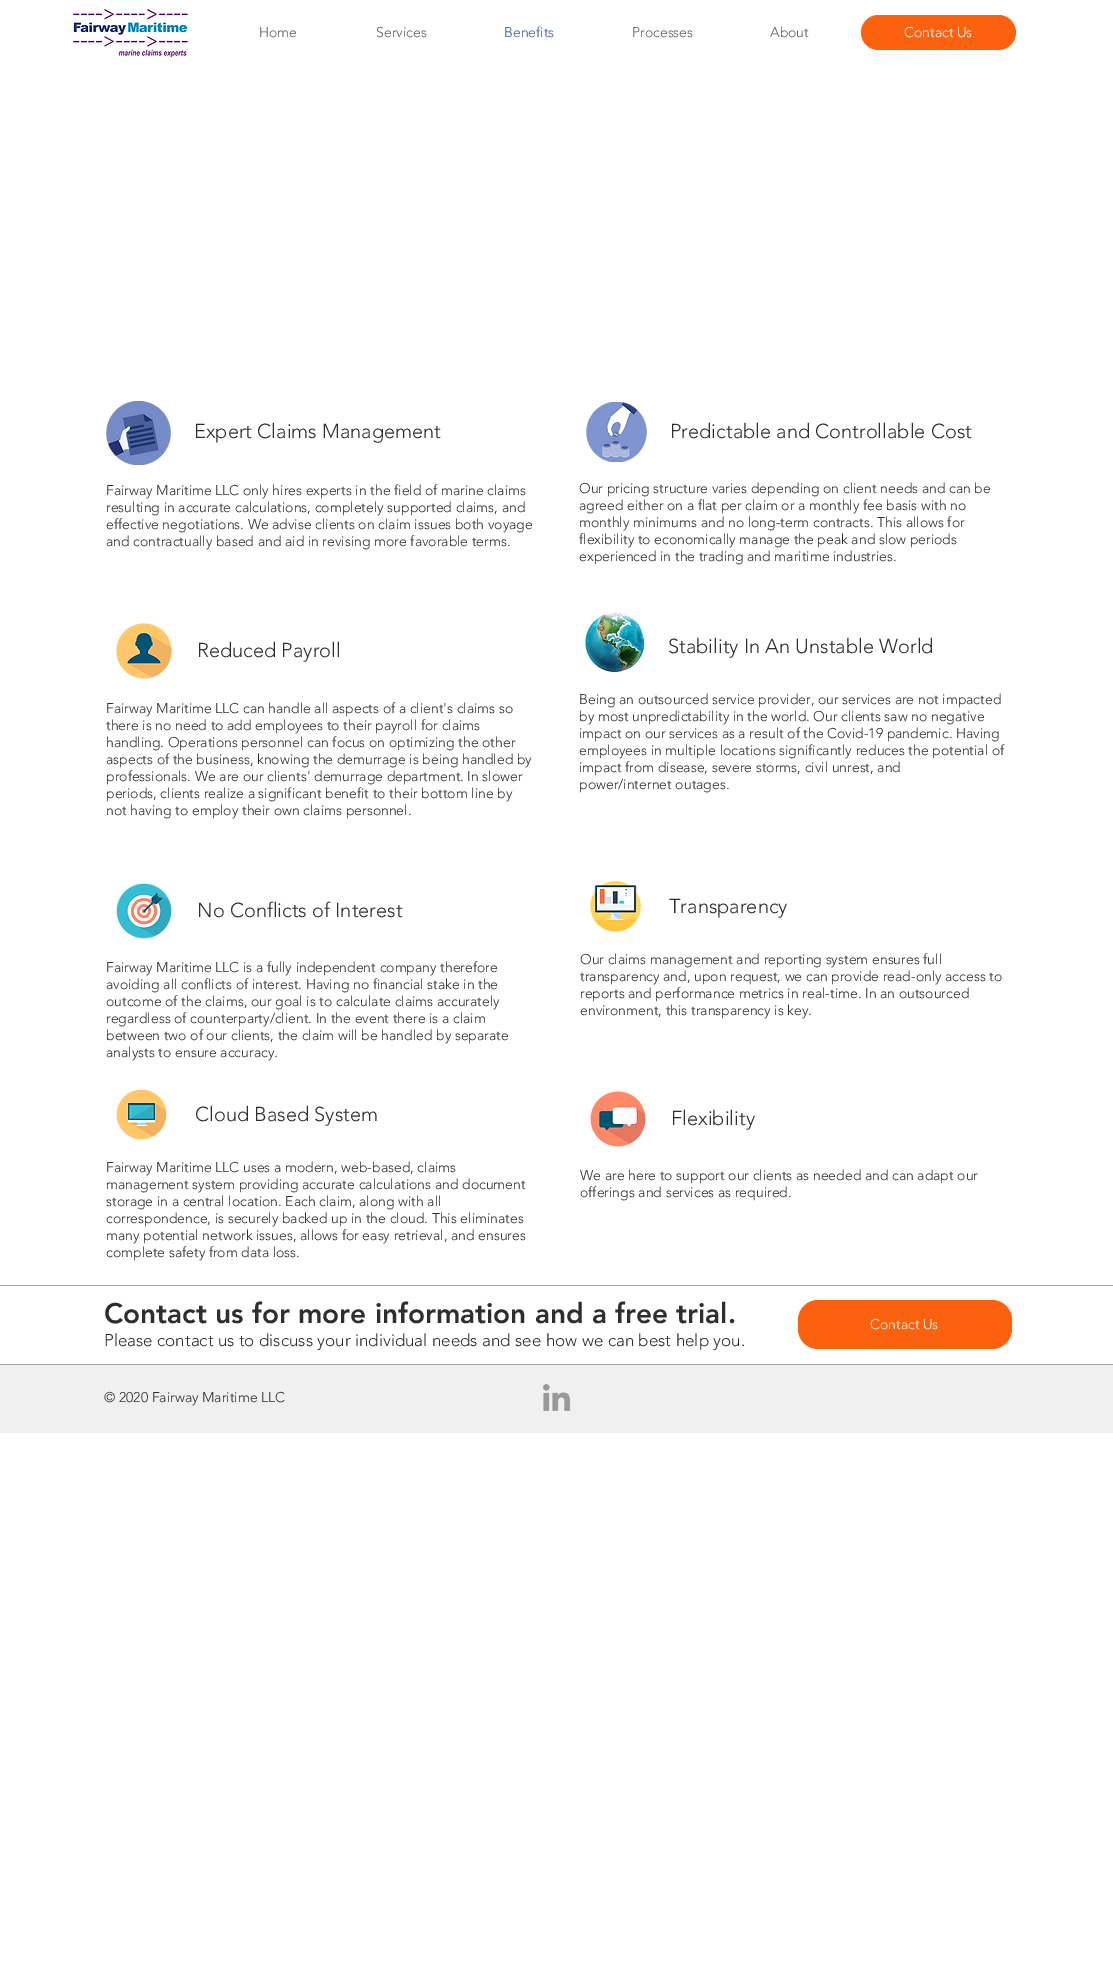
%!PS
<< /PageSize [1113 1971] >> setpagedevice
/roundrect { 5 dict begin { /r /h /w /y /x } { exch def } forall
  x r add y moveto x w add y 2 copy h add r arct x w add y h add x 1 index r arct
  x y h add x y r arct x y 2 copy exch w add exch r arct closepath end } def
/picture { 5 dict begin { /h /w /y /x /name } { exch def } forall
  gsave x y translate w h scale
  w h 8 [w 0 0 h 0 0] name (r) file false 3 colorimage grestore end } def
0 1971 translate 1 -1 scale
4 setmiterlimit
1 setgray
0 0 1113 1971 rectfill
(img1.rgb) 73 9 115 49 picture
/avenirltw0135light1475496-Light [14 0 0 -14 0 0] selectfont
0.376 0.369 0.369 setrgbcolor
259 37 moveto (Home) show
376 37 moveto (Services) show
0.231 0.345 0.722 setrgbcolor
504 37 moveto (Benefits) show
0.376 0.369 0.369 setrgbcolor
632 37 moveto (Processes) show
770 37 moveto (About) show
0.988 0.38 0.051 setrgbcolor
861 15 155 35 17.5 roundrect fill
1 setgray
904 37 moveto (Contact Us) show
(img2.rgb) 106 401 65 64 picture
/avenirltw0135light1475496-Light [20 0 0 -20 0 0] selectfont
0.184 0.18 0.18 setrgbcolor
194 438 moveto (Expert Claims Management) show
/avenirltw0135light1475496-Light [14 0 0 -14 0 0] selectfont
106 495 moveto (Fairway Maritime LLC only hires experts in the field of marine claims) show
106 512 moveto (resulting in accurate calculations, completely supported claims, and) show
106 529 moveto (effective negotiations. We advise clients on claim issues both voyage) show
106 546 moveto (and contractually based and aid in revising more favorable terms.) show
(img3.rgb) 586 402 61 60 picture
/avenirltw0135light1475496-Light [20 0 0 -20 0 0] selectfont
670 438 moveto (Predictable and Controllable Cost) show
/avenirltw0135light1475496-Light [14 0 0 -14 0 0] selectfont
579 493 moveto (Our pricing structure varies depending on client needs and can be) show
579 510 moveto (agreed either on a flat per claim or a monthly fee basis with no) show
579 527 moveto (monthly minimums and no long-term contracts. This allows for) show
579 544 moveto (flexibility to economically manage the peak and slow periods) show
579 561 moveto (experienced in the trading and maritime industries.) show
(img4.rgb) 116 623 56 56 picture
/avenirltw0135light1475496-Light [20 0 0 -20 0 0] selectfont
197 657 moveto (Reduced Payroll) show
/avenirltw0135light1475496-Light [14 0 0 -14 0 0] selectfont
106 713 moveto (Fairway Maritime LLC can handle all aspects of a client's claims so) show
106 730 moveto (there is no need to add employees to their payroll for claims) show
106 747 moveto (handling. Operations personnel can focus on optimizing the other) show
106 764 moveto (aspects of the business, knowing the demurrage is being handled by) show
106 781 moveto (professionals. We are our clients' demurrage department. In slower) show
106 798 moveto (periods, clients realize a significant benefit to their bottom line by) show
106 815 moveto (not having to employ their own claims personnel.) show
(img5.rgb) 585 612 60 61 picture
/avenirltw0135light1475496-Light [20 0 0 -20 0 0] selectfont
668 653 moveto (Stability In An Unstable World) show
/avenirltw0135light1475496-Light [14 0 0 -14 0 0] selectfont
579 704 moveto (Being an outsourced service provider, our services are not impacted) show
579 721 moveto (by most unpredictability in the world. Our clients saw no negative) show
579 738 moveto (impact on our services as a result of the Covid-19 pandemic. Having) show
579 755 moveto (employees in multiple locations significantly reduces the potential of) show
579 772 moveto (impact from disease, severe storms, civil unrest, and) show
579 789 moveto (power/internet outages.) show
(img6.rgb) 116 883 56 56 picture
/avenirltw0135light1475496-Light [20 0 0 -20 0 0] selectfont
197 917 moveto (No Conflicts of Interest) show
/avenirltw0135light1475496-Light [14 0 0 -14 0 0] selectfont
106 972 moveto (Fairway Maritime LLC is a fully independent company therefore) show
106 989 moveto (avoiding all conflicts of interest. Having no financial stake in the) show
106 1006 moveto (outcome of the claims, our goal is to calculate claims accurately) show
106 1023 moveto (regardless of counterparty/client. In the event there is a claim) show
106 1040 moveto (between two of our clients, the claim will be handled by separate) show
106 1057 moveto (analysts to ensure accuracy.) show
(img7.rgb) 590 881 51 51 picture
/avenirltw0135light1475496-Light [20 0 0 -20 0 0] selectfont
669 913 moveto (Transparency) show
/avenirltw0135light1475496-Light [14 0 0 -14 0 0] selectfont
580 964 moveto (Our claims management and reporting system ensures full) show
580 981 moveto (transparency and, upon request, we can provide read-only access to) show
580 998 moveto (reports and performance metrics in real-time. In an outsourced) show
580 1015 moveto (environment, this transparency is key.) show
(img8.rgb) 116 1089 51 51 picture
/avenirltw0135light1475496-Light [20 0 0 -20 0 0] selectfont
195 1121 moveto (Cloud Based System) show
/avenirltw0135light1475496-Light [14 0 0 -14 0 0] selectfont
106 1172 moveto (Fairway Maritime LLC uses a modern, web-based, claims) show
106 1189 moveto (management system providing accurate calculations and document) show
106 1206 moveto (storage in a central location. Each claim, along with all) show
106 1223 moveto (correspondence, is securely backed up in the cloud. This eliminates) show
106 1240 moveto (many potential network issues, allows for easy retrieval, and ensures) show
106 1257 moveto (complete safety from data loss.) show
(img9.rgb) 590 1091 56 56 picture
/avenirltw0135light1475496-Light [20 0 0 -20 0 0] selectfont
671 1125 moveto (Flexibility) show
/avenirltw0135light1475496-Light [14 0 0 -14 0 0] selectfont
580 1180 moveto (We are here to support our clients as needed and can adapt our) show
580 1197 moveto (offerings and services as required.) show
0.627 0.627 0.624 setrgbcolor
0 1285 1113 1 rectfill
/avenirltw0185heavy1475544-Black [28 0 0 -28 0 0] selectfont
0.184 0.18 0.18 setrgbcolor
104 1323 moveto (Contact us for more information and a free trial.) show
/avenirltw0135light1475496-Light [17 0 0 -17 0 0] selectfont
104 1346 moveto (Please contact us to discuss your individual needs and see how we can best help you.) show
0.988 0.38 0.051 setrgbcolor
798 1300 214 49 20 roundrect fill
/avenirltw0135light1475496-Light [14 0 0 -14 0 0] selectfont
1 setgray
870 1329 moveto (Contact Us) show
0.941 setgray
0 1365 1113 68 rectfill
0.627 0.627 0.624 setrgbcolor
0 1364 1113 1 rectfill
0.184 0.18 0.18 setrgbcolor
104 1402 moveto (© 2020 Fairway Maritime LLC) show
(img10.rgb) 542 1384 29 27 picture
showpage
